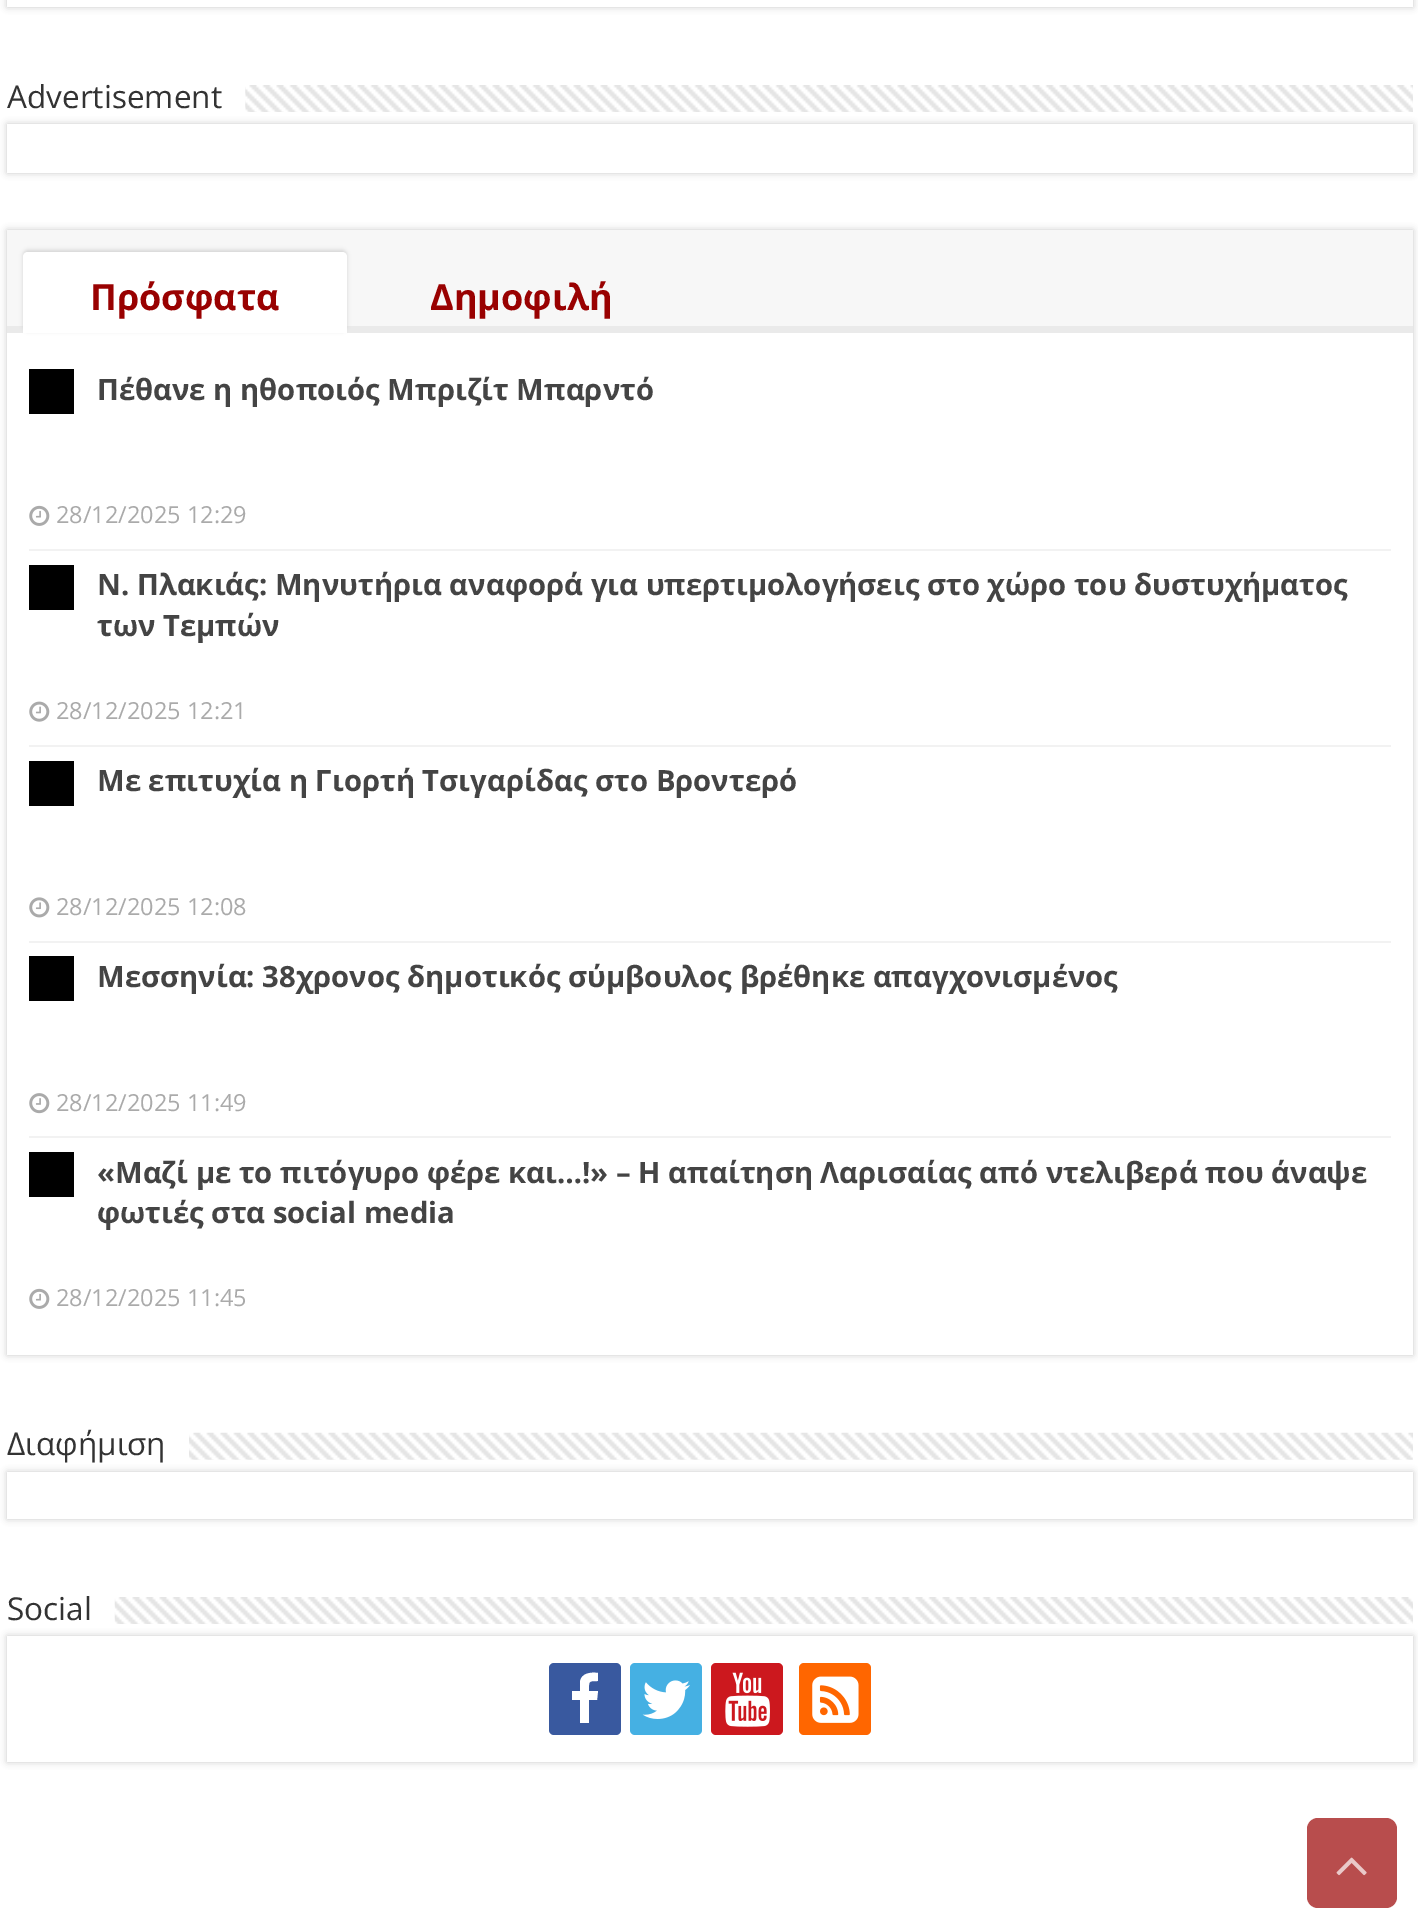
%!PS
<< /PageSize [1418 1930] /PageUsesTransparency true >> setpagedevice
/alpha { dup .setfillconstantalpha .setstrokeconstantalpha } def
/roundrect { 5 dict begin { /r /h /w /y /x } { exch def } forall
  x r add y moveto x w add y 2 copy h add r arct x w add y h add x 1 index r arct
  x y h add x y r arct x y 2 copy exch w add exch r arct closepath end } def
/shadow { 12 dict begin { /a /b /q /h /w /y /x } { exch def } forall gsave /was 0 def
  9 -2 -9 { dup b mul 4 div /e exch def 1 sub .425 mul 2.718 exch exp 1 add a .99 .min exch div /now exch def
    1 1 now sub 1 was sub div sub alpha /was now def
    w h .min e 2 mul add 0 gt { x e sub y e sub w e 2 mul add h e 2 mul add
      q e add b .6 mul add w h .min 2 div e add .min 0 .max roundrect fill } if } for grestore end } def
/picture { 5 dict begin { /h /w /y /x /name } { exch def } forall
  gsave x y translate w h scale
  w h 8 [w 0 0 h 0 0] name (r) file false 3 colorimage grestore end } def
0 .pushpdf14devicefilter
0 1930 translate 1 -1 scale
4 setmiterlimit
1 setgray
0 0 1418 1930 rectfill
0.792 setgray
7 -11 1406 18 0 3.5 1 shadow
1 setgray
7 0 1406 7 rectfill
/OpenSans-Regular [31.5 0 0 -31.5 0 0] selectfont
0.2 setgray
7 108 moveto (Advertisement) show
(img1.rgb) 245 85 1168 27 picture
gsave
newpath 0 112 moveto 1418 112 lineto 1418 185 lineto 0 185 lineto closepath 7 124 moveto 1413 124 lineto 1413 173 lineto 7 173 lineto closepath eoclip newpath
0.792 setgray
7 124 1406 49 0 3.5 1 shadow
grestore
0.792 setgray
7 230 1406 1125 0 3.5 1 shadow
1 setgray
7 333 1406 1022 rectfill
0.969 setgray
7 230 1406 96 rectfill
0.918 setgray
7 326 1406 7 rectfill
0.831 setgray
23 250 324 81 5 2 1 shadow
1 setgray
newpath 28 252 moveto 342 252 lineto 345 252 347 254 347 257 curveto 347 333 lineto 23 333 lineto 23 257 lineto 23 254 25 252 28 252 curveto closepath fill
/OpenSans-Bold [36 0 0 -36 0 0] selectfont
0.6 0.004 0.004 setrgbcolor
90 310 moveto (Πρόσφατα) show
430 310 moveto (Δημοφιλή) show
0.949 setgray
29 549 1362 2 rectfill
0 setgray
29 369 45 45 rectfill
/OpenSans-Bold [29.25 0 0 -29.25 0 0] selectfont
0.267 setgray
97 400 moveto (Πέθανε η ηθοποιός Μπριζίτ Μπαρντό) show
(img2.rgb) 29 505 21 21 picture
/OpenSans-Regular [23.5 0 0 -23.5 0 0] selectfont
0.667 setgray
56 523 moveto (28/12/2025 12:29) show
0.949 setgray
29 745 1362 2 rectfill
0 setgray
29 565 45 45 rectfill
/OpenSans-Bold [29.25 0 0 -29.25 0 0] selectfont
0.267 setgray
97 595 moveto (Ν. Πλακιάς: Μηνυτήρια αναφορά για υπερτιμολογήσεις στο χώρο του δυστυχήματος) show
97 636 moveto (των Τεμπών) show
(img3.rgb) 29 701 21 21 picture
/OpenSans-Regular [23.5 0 0 -23.5 0 0] selectfont
0.667 setgray
56 719 moveto (28/12/2025 12:21) show
0.949 setgray
29 941 1362 2 rectfill
0 setgray
29 761 45 45 rectfill
/OpenSans-Bold [29.25 0 0 -29.25 0 0] selectfont
0.267 setgray
97 791 moveto (Με επιτυχία η Γιορτή Τσιγαρίδας στο Βροντερό) show
(img4.rgb) 29 897 21 21 picture
/OpenSans-Regular [23.5 0 0 -23.5 0 0] selectfont
0.667 setgray
56 915 moveto (28/12/2025 12:08) show
0.949 setgray
29 1136 1362 2 rectfill
0 setgray
29 956 45 45 rectfill
/OpenSans-Bold [29.25 0 0 -29.25 0 0] selectfont
0.267 setgray
97 987 moveto (Μεσσηνία: 38χρονος δημοτικός σύμβουλος βρέθηκε απαγχονισμένος) show
(img5.rgb) 29 1093 21 21 picture
/OpenSans-Regular [23.5 0 0 -23.5 0 0] selectfont
0.667 setgray
56 1111 moveto (28/12/2025 11:49) show
0 setgray
29 1152 45 45 rectfill
/OpenSans-Bold [29.25 0 0 -29.25 0 0] selectfont
0.267 setgray
97 1183 moveto («Μαζί με το πιτόγυρo φέρε και…!» – Η απαίτηση Λαρισαίας από ντελιβερά που άναψε) show
97 1223 moveto (φωτιές στα social media) show
(img2.rgb) 29 1288 21 21 picture
/OpenSans-Regular [23.5 0 0 -23.5 0 0] selectfont
0.667 setgray
56 1306 moveto (28/12/2025 11:45) show
0.792 setgray
7 1472 1406 47 0 3.5 1 shadow
/OpenSans-Regular [31.5 0 0 -31.5 0 0] selectfont
0.2 setgray
7 1455 moveto (Διαφήμιση) show
(img6.rgb) 189 1432 1224 28 picture
1 setgray
7 1472 1406 47 rectfill
0.2 setgray
7 1620 moveto (Social) show
(img7.rgb) 114 1597 1299 27 picture
0.792 setgray
7 1636 1406 126 0 3.5 1 shadow
1 setgray
7 1636 1406 126 rectfill
0.224 0.349 0.624 setrgbcolor
549 1663 72 72 5 roundrect fill
1 setgray
newpath 598 1673 moveto 598 1681 lineto 588 1681 589 1681 589 1691 curveto 598 1691 lineto 597 1700 lineto 589 1700 lineto 589 1723 lineto 580 1723 lineto 580 1700 lineto 572 1700 lineto 572 1691 lineto 580 1691 lineto 580 1682 lineto 581 1673 591 1672 598 1673 curveto closepath fill
0.271 0.69 0.89 setrgbcolor
630 1663 72 72 5 roundrect fill
(img8.rgb) 642 1680 48 39 picture
0.8 0.094 0.118 setrgbcolor
711 1663 72 72 5 roundrect fill
(img9.rgb) 725 1672 45 55 picture
1 0.4 0 setrgbcolor
799 1663 72 72 5 roundrect fill
(img10.rgb) 812 1676 47 47 picture
0.722 0.302 0.302 setrgbcolor
1307 1818 90 90 11 roundrect fill
(img11.rgb) 1336 1857 31 19 picture
.poppdf14devicefilter showpage
